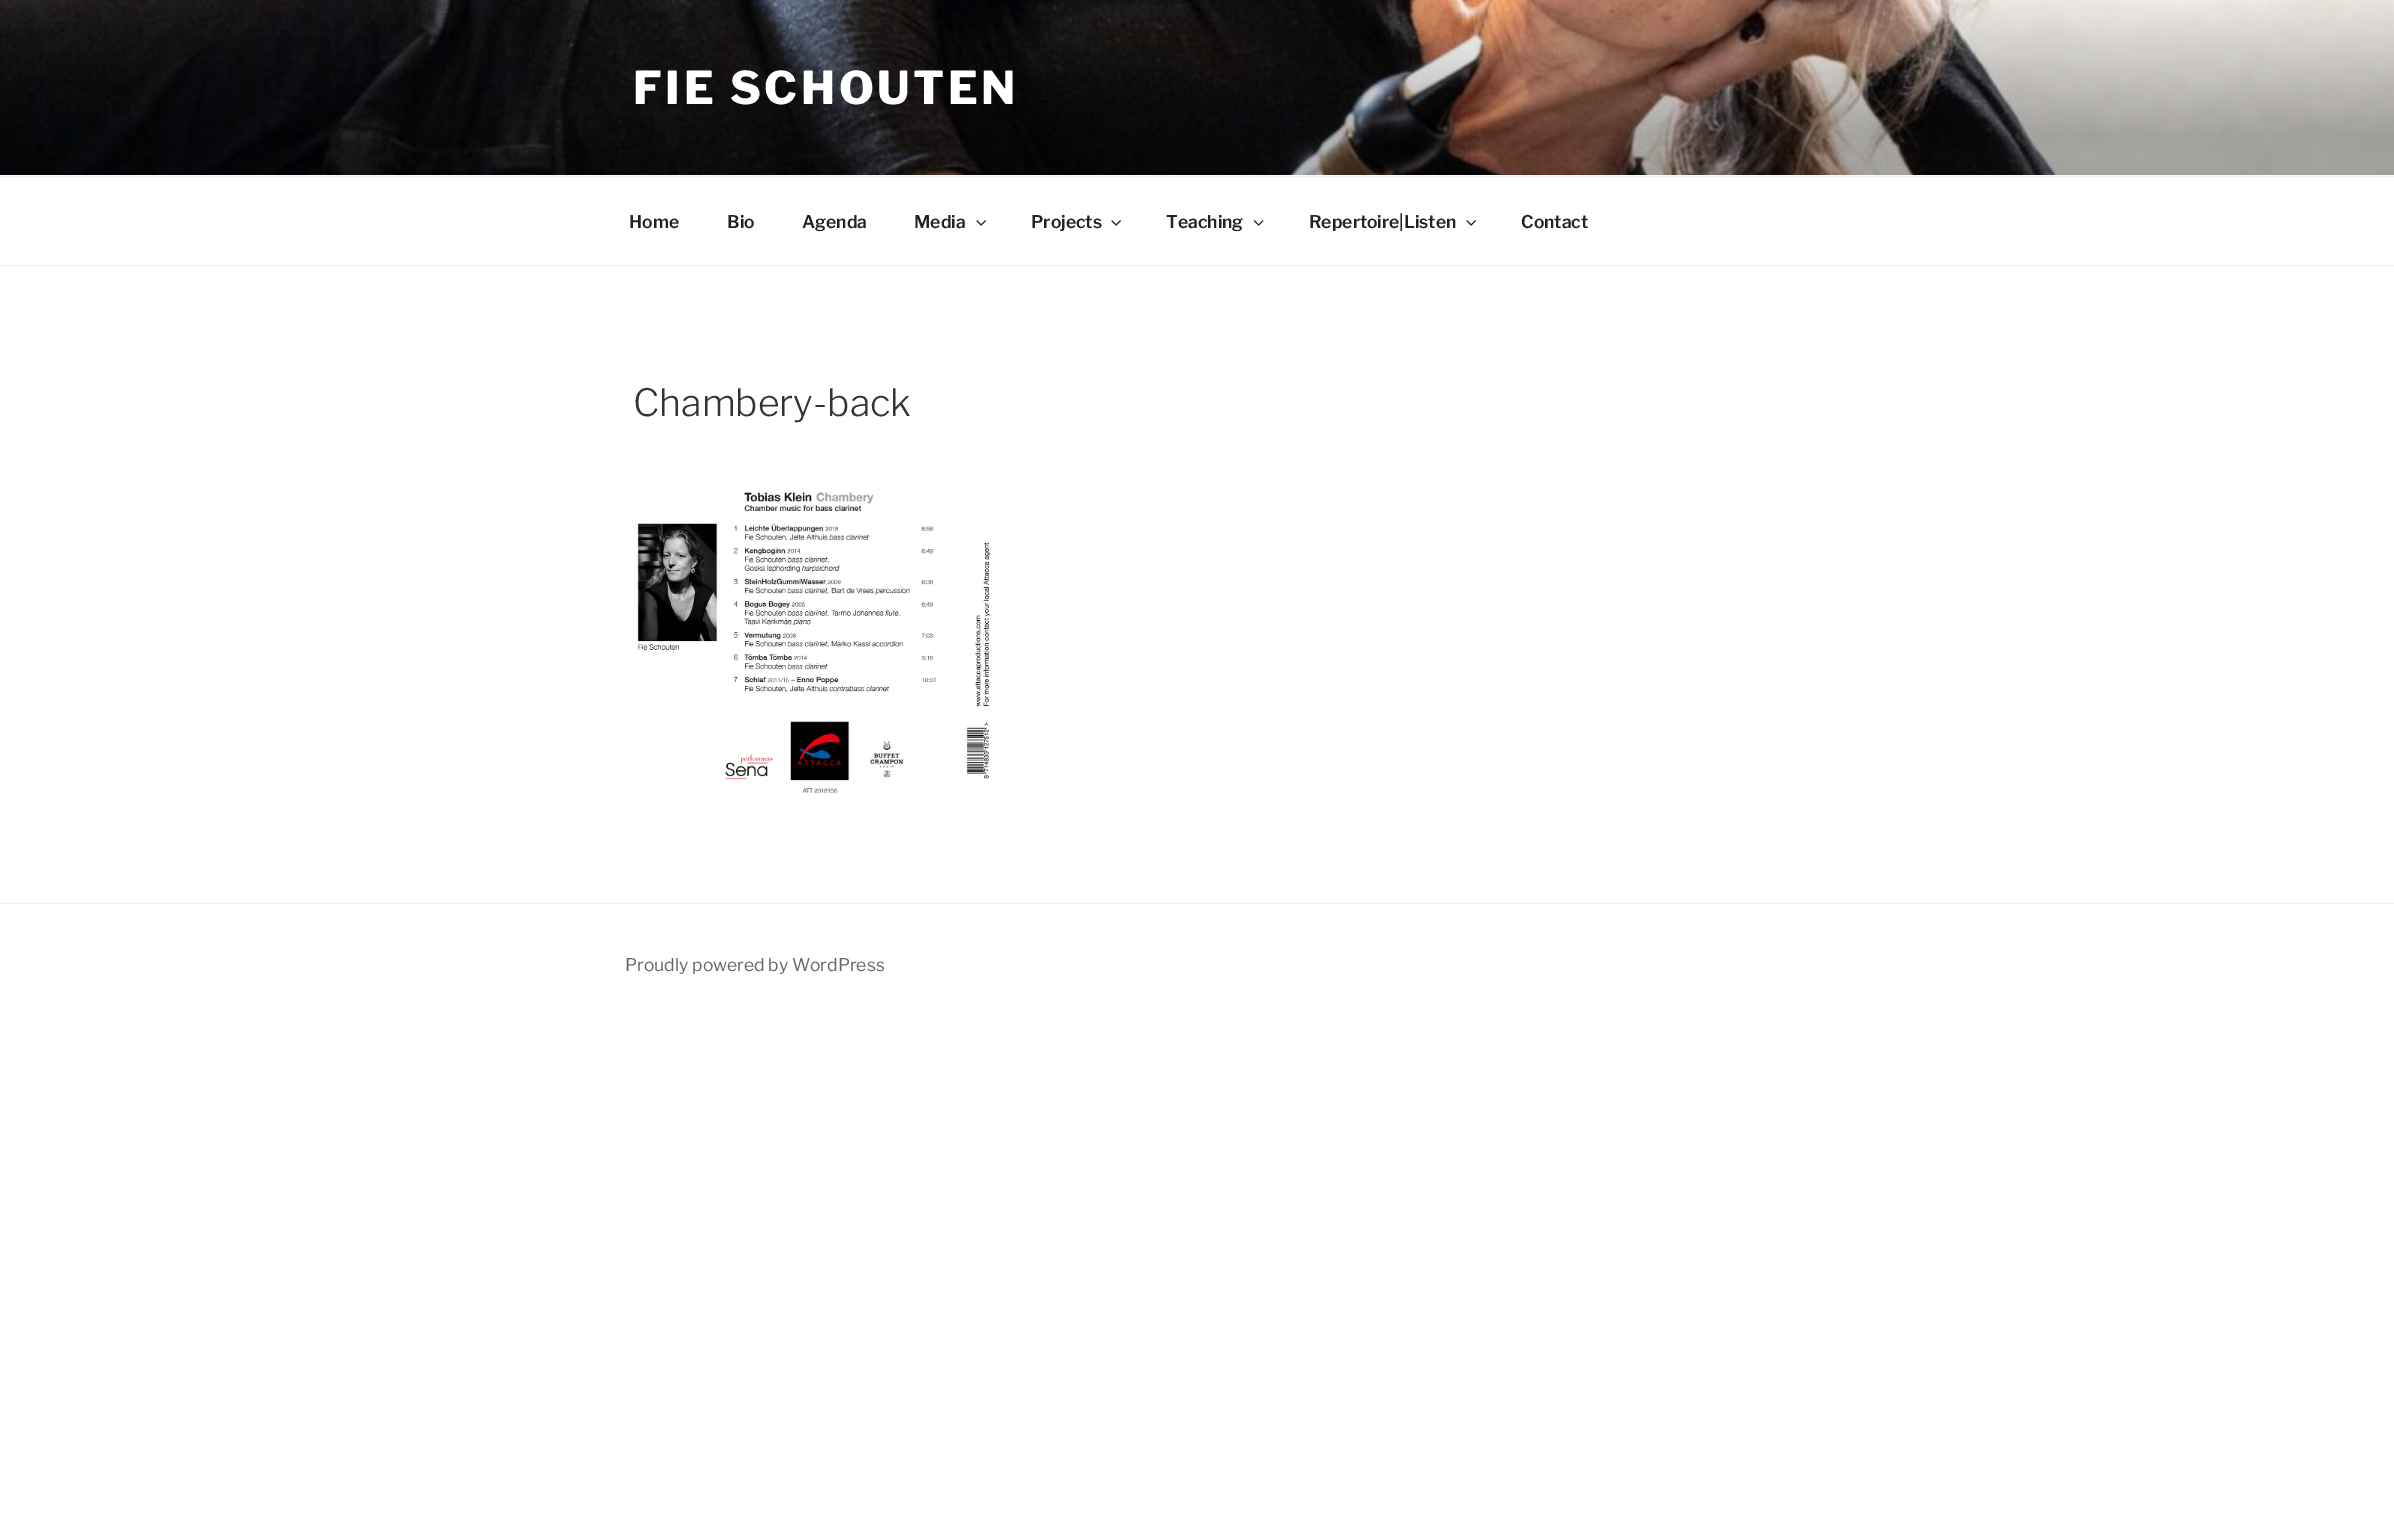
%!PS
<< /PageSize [2394 1513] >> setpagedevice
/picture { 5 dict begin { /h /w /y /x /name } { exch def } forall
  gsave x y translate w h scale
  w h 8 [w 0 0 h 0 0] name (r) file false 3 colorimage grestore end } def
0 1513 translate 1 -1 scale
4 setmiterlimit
1 setgray
0 0 2394 1513 rectfill
0.98 setgray
0 175 2394 1 rectfill
(img1.rgb) 0 0 2394 175 picture
/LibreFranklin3-Thin [45 0 0 -45 0 0] selectfont
1 setgray
633 104 moveto 3.6 0 (FIE SCHOUTEN) ashow
0.933 setgray
0 176 2394 1 rectfill
0 265 2394 1 rectfill
/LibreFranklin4-Thin [17.5 0 0 -17.5 0 0] selectfont
0.133 setgray
629 228 moveto (Home) show
727 228 moveto (Bio) show
802 228 moveto (Agenda) show
914 228 moveto (Media) show
(img2.rgb) 976 220 10 6 picture
1031 228 moveto (Projects) show
(img2.rgb) 1111 220 10 6 picture
1166 228 moveto (Teaching) show
(img3.rgb) 1253 220 11 6 picture
1309 228 moveto (Repertoire|Listen) show
(img2.rgb) 1466 220 10 6 picture
1521 228 moveto (Contact) show
/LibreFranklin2-Thin [37.5 0 0 -37.5 0 0] selectfont
0.2 setgray
633 416 moveto (Chambery-back) show
(img4.rgb) 637 492 354 302 picture
0.933 setgray
0 903 2394 1 rectfill
/LibreFranklin-Thin [17.5 0 0 -17.5 0 0] selectfont
0.4 setgray
625 971 moveto (Proudly powered by WordPress) show
showpage
